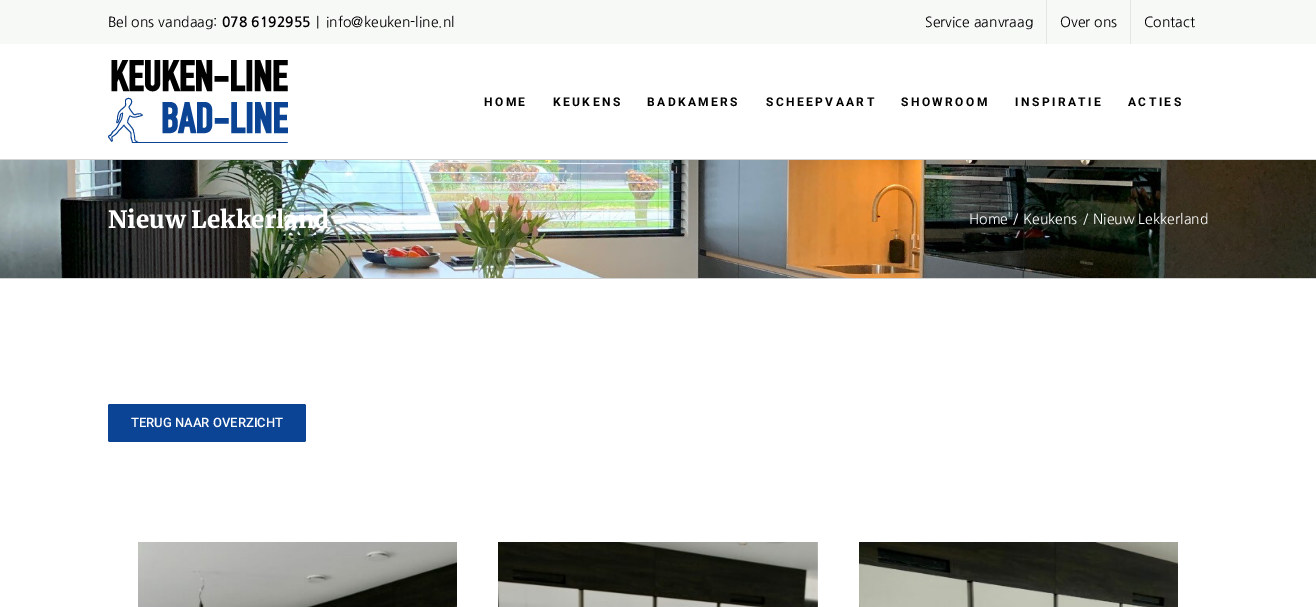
%!PS
<< /PageSize [1316 607] >> setpagedevice
/roundrect { 5 dict begin { /r /h /w /y /x } { exch def } forall
  x r add y moveto x w add y 2 copy h add r arct x w add y h add x 1 index r arct
  x y h add x y r arct x y 2 copy exch w add exch r arct closepath end } def
/picture { 5 dict begin { /h /w /y /x /name } { exch def } forall
  gsave x y translate w h scale
  w h 8 [w 0 0 h 0 0] name (r) file false 3 colorimage grestore end } def
0 607 translate 1 -1 scale
4 setmiterlimit
1 setgray
0 0 1316 607 rectfill
0.969 0.976 0.969 setrgbcolor
0 0 1316 44 rectfill
/NanumGothic-Regular [14 0 0 -14 0 0] selectfont
0 setgray
108 27 moveto (Bel ons vandaag:) show
/NanumGothic-Bold [14 0 0 -14 0 0] selectfont
222 27 moveto (078 6192955) show
/NanumGothic-Regular [14 0 0 -14 0 0] selectfont
316 27 moveto (|) show
326 27 moveto (info@keuken-line.nl) show
925 27 moveto (Service aanvraag) show
0.898 setgray
1046 0 1 44 rectfill
0 setgray
1060 27 moveto (Over ons) show
0.898 setgray
1130 0 1 44 rectfill
0 setgray
1144 27 moveto (Contact) show
(img1.rgb) 108 60 180 83 picture
/Roboto-Bold [12 0 0 -12 0 0] selectfont
484 106 moveto 2.4 0 (HOME) ashow
553 106 moveto 2.4 0 (KEUKENS) ashow
647 106 moveto 2.4 0 (BADKAMERS) ashow
766 106 moveto 2.4 0 (SCHEEPVAART) ashow
901 106 moveto 2.4 0 (SHOWROOM) ashow
1015 106 moveto 2.4 0 (INSPIRATIE) ashow
1128 106 moveto 2.4 0 (ACTIES) ashow
(img2.rgb) 0 160 1316 118 picture
0.824 0.827 0.831 setrgbcolor
0 159 1316 1 rectfill
0 278 1316 1 rectfill
/Merriweather-Black [24 0 0 -24 0 0] selectfont
1 setgray
108 228 moveto (Nieuw Lekkerland) show
/NanumGothic-Regular [14 0 0 -14 0 0] selectfont
969 224 moveto (Home) show
1013 224 moveto (/) show
1023 224 moveto (Keukens) show
1083 224 moveto (/) show
1093 224 moveto (Nieuw Lekkerland) show
0.043 0.263 0.584 setrgbcolor
108 404 198 38 2 roundrect fill
/Roboto-Medium [13 0 0 -13 0 0] selectfont
1 setgray
131 427 moveto (TERUG NAAR OVERZICHT) show
(img3.rgb) 138 542 319 65 picture
(img4.rgb) 498 542 320 65 picture
(img5.rgb) 859 542 319 65 picture
showpage
